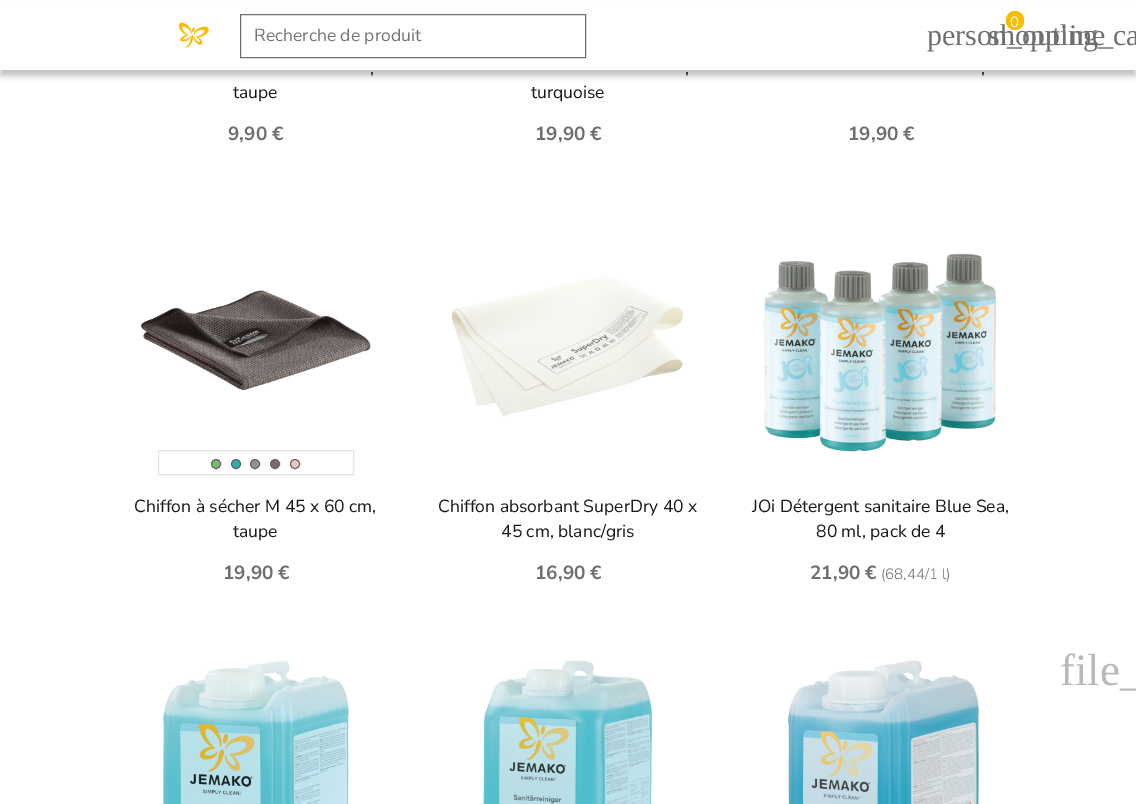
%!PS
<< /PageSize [1136 804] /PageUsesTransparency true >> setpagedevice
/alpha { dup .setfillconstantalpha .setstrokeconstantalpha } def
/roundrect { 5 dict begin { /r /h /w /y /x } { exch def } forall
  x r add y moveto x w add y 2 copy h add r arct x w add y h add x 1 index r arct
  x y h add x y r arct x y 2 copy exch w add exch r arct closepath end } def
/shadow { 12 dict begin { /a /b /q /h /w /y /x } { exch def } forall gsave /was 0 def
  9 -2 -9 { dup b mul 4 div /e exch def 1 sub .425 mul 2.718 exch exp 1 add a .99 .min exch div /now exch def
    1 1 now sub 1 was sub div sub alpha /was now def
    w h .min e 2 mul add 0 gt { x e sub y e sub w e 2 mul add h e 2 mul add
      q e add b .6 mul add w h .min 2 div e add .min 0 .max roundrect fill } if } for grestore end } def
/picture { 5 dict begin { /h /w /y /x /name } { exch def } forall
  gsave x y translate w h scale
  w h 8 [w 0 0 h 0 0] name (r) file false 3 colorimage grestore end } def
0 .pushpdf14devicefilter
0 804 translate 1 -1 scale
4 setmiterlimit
1 setgray
0 0 1136 804 rectfill
0.314 setgray
0 6 1136 70 0 3 0.35 shadow
1 setgray
0 1 1136 69 rectfill
(img1.rgb) 179 22 30 26 picture
/LiberationSerif-Regular [30 0 0 -30 0 0] selectfont
0.439 0.435 0.435 setrgbcolor
927 45 moveto (person_outline) show
988 45 moveto (shopping_ca) show
0.98 0.733 0 setrgbcolor
1006 11 18 19 9 roundrect fill
/NunitoSans-Regular [15 0 0 -15 0 0] selectfont
1 setgray
1010 27 moveto (0) show
0.439 0.435 0.435 setrgbcolor
240.5 14.5 345 43 rectstroke
/NunitoSans-Regular [17.5 0 0 -17.5 0 0] selectfont
0.459 setgray
254 41 moveto (Recherche de produit) show
0.098 setgray
370 74 moveto (,) show
233 98 moveto (taupe) show
/NunitoSans-Bold [19 0 0 -19 0 0] selectfont
0.439 0.435 0.435 setrgbcolor
228 140 moveto (9,90 €) show
/NunitoSans-Regular [17.5 0 0 -17.5 0 0] selectfont
0.098 setgray
685 74 moveto (,) show
531 98 moveto (turquoise) show
/NunitoSans-Bold [19 0 0 -19 0 0] selectfont
0.439 0.435 0.435 setrgbcolor
535 140 moveto (19,90 €) show
/NunitoSans-Regular [17.5 0 0 -17.5 0 0] selectfont
0.098 setgray
981 74 moveto (,) show
/NunitoSans-Bold [19 0 0 -19 0 0] selectfont
0.439 0.435 0.435 setrgbcolor
848 140 moveto (19,90 €) show
(img2.rgb) 141 290 230 100 picture
0.898 setgray
158.5 450.5 195 24 rectstroke
0.455 0.733 0.42 setrgbcolor
newpath 216 464 4.5 0 360 arc closepath gsave fill grestore
0.4 setgray
stroke
0.165 0.682 0.682 setrgbcolor
newpath 236 464 4.5 0 360 arc closepath gsave fill grestore
0.4 setgray
stroke
0.549 0.576 0.6 setrgbcolor
newpath 255 464 4.5 0 360 arc closepath gsave fill grestore
0.4 setgray
stroke
0.471 0.412 0.416 setrgbcolor
newpath 275 464 4.5 0 360 arc closepath gsave fill grestore
0.4 setgray
stroke
0.941 0.776 0.773 setrgbcolor
newpath 295 464 4.5 0 360 arc closepath gsave fill grestore
0.4 setgray
stroke
/NunitoSans-Regular [17.5 0 0 -17.5 0 0] selectfont
0.098 setgray
134 512 moveto (Chiffon à sécher M 45 x 60 cm,) show
233 537 moveto (taupe) show
/NunitoSans-Bold [19 0 0 -19 0 0] selectfont
0.439 0.435 0.435 setrgbcolor
223 579 moveto (19,90 €) show
(img3.rgb) 451 276 233 141 picture
/NunitoSans-Regular [17.5 0 0 -17.5 0 0] selectfont
0.098 setgray
438 512 moveto (Chiffon absorbant SuperDry 40 x) show
501 537 moveto (45 cm, blanc/gris) show
/NunitoSans-Bold [19 0 0 -19 0 0] selectfont
0.439 0.435 0.435 setrgbcolor
535 579 moveto (16,90 €) show
(img4.rgb) 764 253 232 199 picture
/NunitoSans-Regular [17.5 0 0 -17.5 0 0] selectfont
0.098 setgray
752 512 moveto (JOi Détergent sanitaire Blue Sea,) show
816 537 moveto (80 ml, pack de 4) show
/NunitoSans-Bold [19 0 0 -19 0 0] selectfont
0.439 0.435 0.435 setrgbcolor
810 579 moveto (21,90 €) show
/NunitoSans-Light [15 0 0 -15 0 0] selectfont
881 579 moveto (\(68,44/1 l\)) show
(img5.rgb) 163 660 186 144 picture
(img6.rgb) 483 660 169 144 picture
(img7.rgb) 787 660 192 144 picture
/LiberationSerif-Regular [45 0 0 -45 0 0] selectfont
0.725 setgray
1060 685 moveto (file_) show
.poppdf14devicefilter showpage
